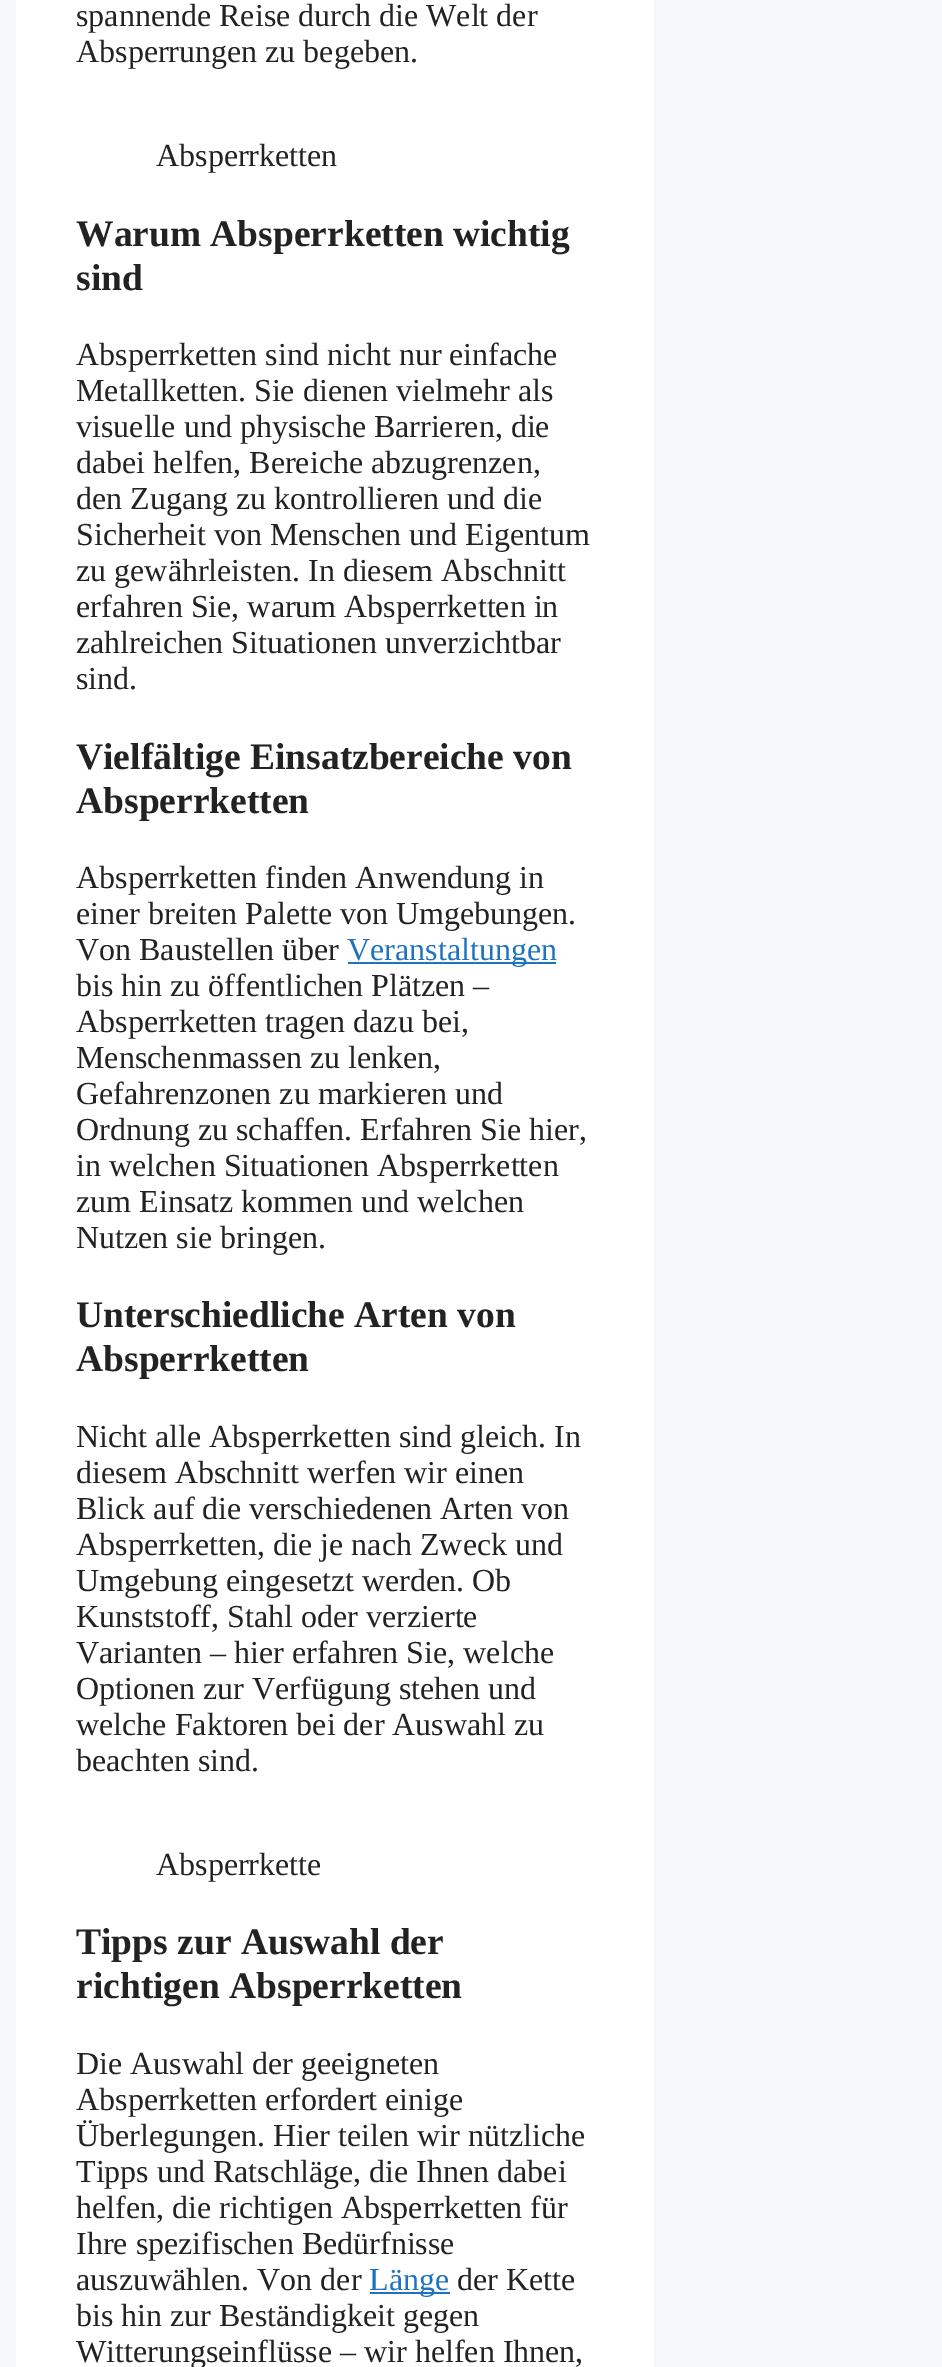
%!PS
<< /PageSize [942 2367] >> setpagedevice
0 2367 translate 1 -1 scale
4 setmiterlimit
0.969 0.973 0.976 setrgbcolor
0 0 942 2367 rectfill
1 setgray
16 0 638 2367 rectfill
/LiberationSerif-Regular [32 0 0 -32 0 0] selectfont
0.133 setgray
76 26 moveto (spannende Reise durch die Welt der) show
76 62 moveto (Absperrungen zu begeben.) show
156 166 moveto (Absperrketten) show
/LiberationSerif-Bold [37.5 0 0 -37.5 0 0] selectfont
76 246 moveto (Warum Absperrketten wichtig) show
76 290 moveto (sind) show
/LiberationSerif-Regular [32 0 0 -32 0 0] selectfont
76 365 moveto (Absperrketten sind nicht nur einfache) show
76 401 moveto (Metallketten. Sie dienen vielmehr als) show
76 437 moveto (visuelle und physische Barrieren, die) show
76 473 moveto (dabei helfen, Bereiche abzugrenzen,) show
76 509 moveto (den Zugang zu kontrollieren und die) show
76 545 moveto (Sicherheit von Menschen und Eigentum) show
76 581 moveto (zu gewährleisten. In diesem Abschnitt) show
76 617 moveto (erfahren Sie, warum Absperrketten in) show
76 653 moveto (zahlreichen Situationen unverzichtbar) show
76 689 moveto (sind.) show
/LiberationSerif-Bold [37.5 0 0 -37.5 0 0] selectfont
76 769 moveto (Vielfältige Einsatzbereiche von) show
76 813 moveto (Absperrketten) show
/LiberationSerif-Regular [32 0 0 -32 0 0] selectfont
76 888 moveto (Absperrketten finden Anwendung in) show
76 924 moveto (einer breiten Palette von Umgebungen.) show
76 960 moveto (Von Baustellen über) show
0.118 0.451 0.745 setrgbcolor
348 962 208 2 rectfill
347 960 moveto (Veranstaltungen) show
0.133 setgray
76 996 moveto (bis hin zu öffentlichen Plätzen –) show
76 1032 moveto (Absperrketten tragen dazu bei,) show
76 1068 moveto (Menschenmassen zu lenken,) show
76 1104 moveto (Gefahrenzonen zu markieren und) show
76 1140 moveto (Ordnung zu schaffen. Erfahren Sie hier,) show
76 1176 moveto (in welchen Situationen Absperrketten) show
76 1212 moveto (zum Einsatz kommen und welchen) show
76 1248 moveto (Nutzen sie bringen.) show
/LiberationSerif-Bold [37.5 0 0 -37.5 0 0] selectfont
76 1327 moveto (Unterschiedliche Arten von) show
76 1371 moveto (Absperrketten) show
/LiberationSerif-Regular [32 0 0 -32 0 0] selectfont
76 1447 moveto (Nicht alle Absperrketten sind gleich. In) show
76 1483 moveto (diesem Abschnitt werfen wir einen) show
76 1519 moveto (Blick auf die verschiedenen Arten von) show
76 1555 moveto (Absperrketten, die je nach Zweck und) show
76 1591 moveto (Umgebung eingesetzt werden. Ob) show
76 1627 moveto (Kunststoff, Stahl oder verzierte) show
76 1663 moveto (Varianten – hier erfahren Sie, welche) show
76 1699 moveto (Optionen zur Verfügung stehen und) show
76 1735 moveto (welche Faktoren bei der Auswahl zu) show
76 1771 moveto (beachten sind.) show
156 1875 moveto (Absperrkette) show
/LiberationSerif-Bold [37.5 0 0 -37.5 0 0] selectfont
76 1954 moveto (Tipps zur Auswahl der) show
76 1998 moveto (richtigen Absperrketten) show
/LiberationSerif-Regular [32 0 0 -32 0 0] selectfont
76 2074 moveto (Die Auswahl der geeigneten) show
76 2110 moveto (Absperrketten erfordert einige) show
76 2146 moveto (Überlegungen. Hier teilen wir nützliche) show
76 2182 moveto (Tipps und Ratschläge, die Ihnen dabei) show
76 2218 moveto (helfen, die richtigen Absperrketten für) show
76 2254 moveto (Ihre spezifischen Bedürfnisse) show
76 2290 moveto (auszuwählen. Von der) show
0.118 0.451 0.745 setrgbcolor
370 2292 80 2 rectfill
369 2290 moveto (Länge) show
0.133 setgray
457 2290 moveto (der Kette) show
76 2326 moveto (bis hin zur Beständigkeit gegen) show
76 2362 moveto (Witterungseinflüsse – wir helfen Ihnen,) show
showpage
